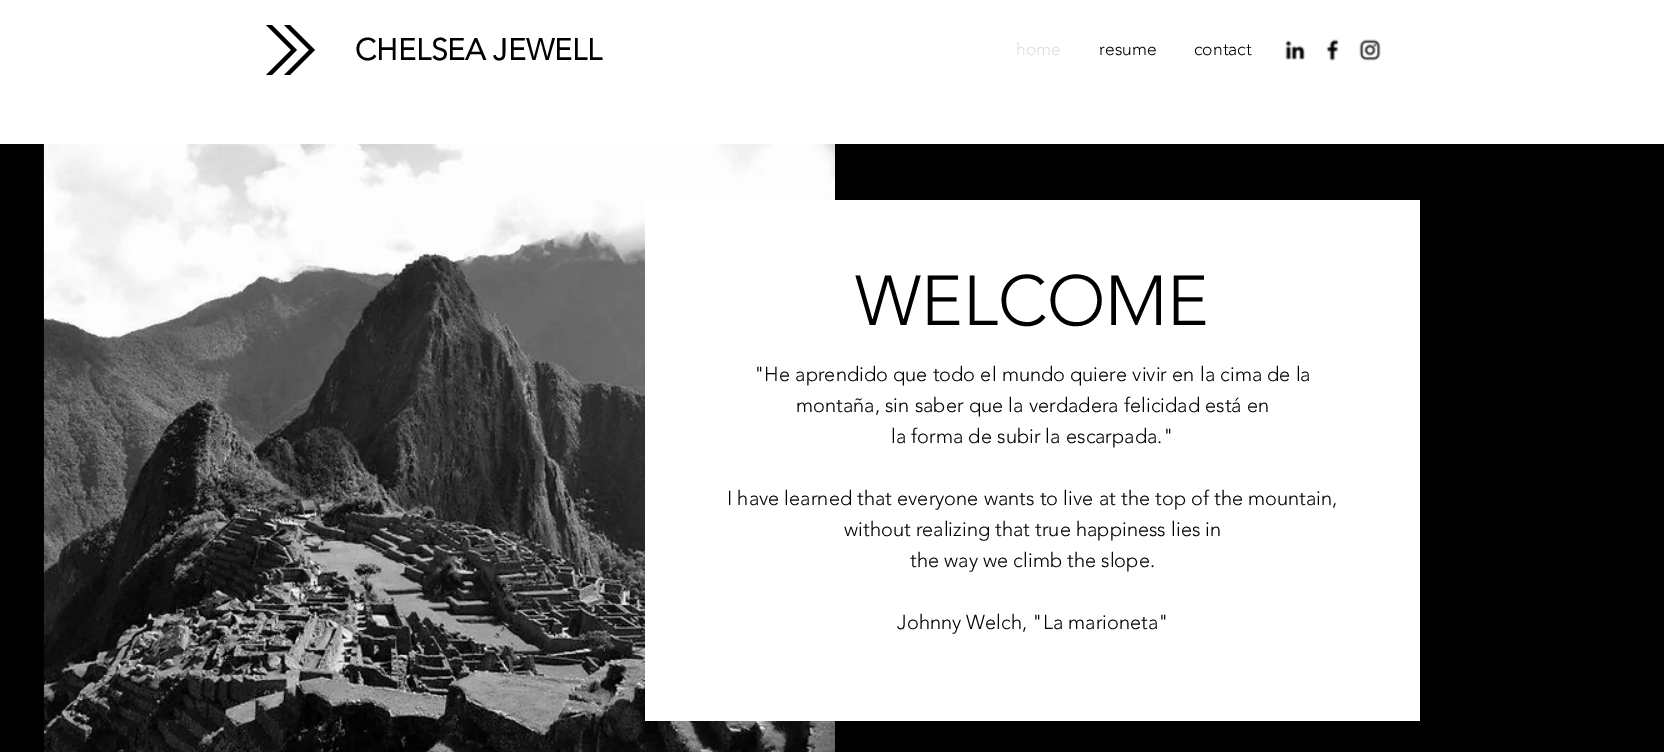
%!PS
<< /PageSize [1664 752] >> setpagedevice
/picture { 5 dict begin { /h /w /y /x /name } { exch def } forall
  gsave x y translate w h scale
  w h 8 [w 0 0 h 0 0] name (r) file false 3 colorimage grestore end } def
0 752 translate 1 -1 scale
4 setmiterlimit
1 setgray
0 0 1664 752 rectfill
0 setgray
newpath 312 47 moveto 290 25 lineto 284 25 lineto 309 50 lineto 284 75 lineto 290 75 lineto 315 50 lineto closepath fill
newpath 297 50 moveto 272 25 lineto 266 25 lineto 291 50 lineto 266 75 lineto 272 75 lineto closepath fill
/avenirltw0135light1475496-Bold [30 0 0 -30 0 0] selectfont
355 60 moveto (CHELSEA JEWELL) show
/avenirltw0135light1475496-Light [17.5 0 0 -17.5 0 0] selectfont
0.871 setgray
1016 55 moveto (home) show
0 setgray
1099 55 moveto (resume) show
1194 55 moveto (contact) show
(img1.rgb) 1285 40 20 20 picture
(img2.rgb) 1326 39 13 22 picture
(img3.rgb) 1359 39 22 22 picture
0 144 1664 608 rectfill
(img4.rgb) 43 144 792 608 picture
1 setgray
645 200 775 521 rectfill
/avenirltw0135light1475496-Light [70 0 0 -70 0 0] selectfont
0 setgray
855 325 moveto (WELCOME) show
/avenirltw0135light1475496-Light [20 0 0 -20 0 0] selectfont
754 381 moveto ("He aprendido que todo el mundo quiere vivir en la cima de la) show
796 412 moveto (montaña, sin saber que la verdadera felicidad está en) show
891 443 moveto (la forma de subir la escarpada.") show
727 505 moveto (I have learned that everyone wants to live at the top of the mountain,) show
844 536 moveto (without realizing that true happiness lies in) show
910 567 moveto (the way we climb the slope.) show
897 629 moveto (Johnny Welch, "La marioneta") show
showpage
